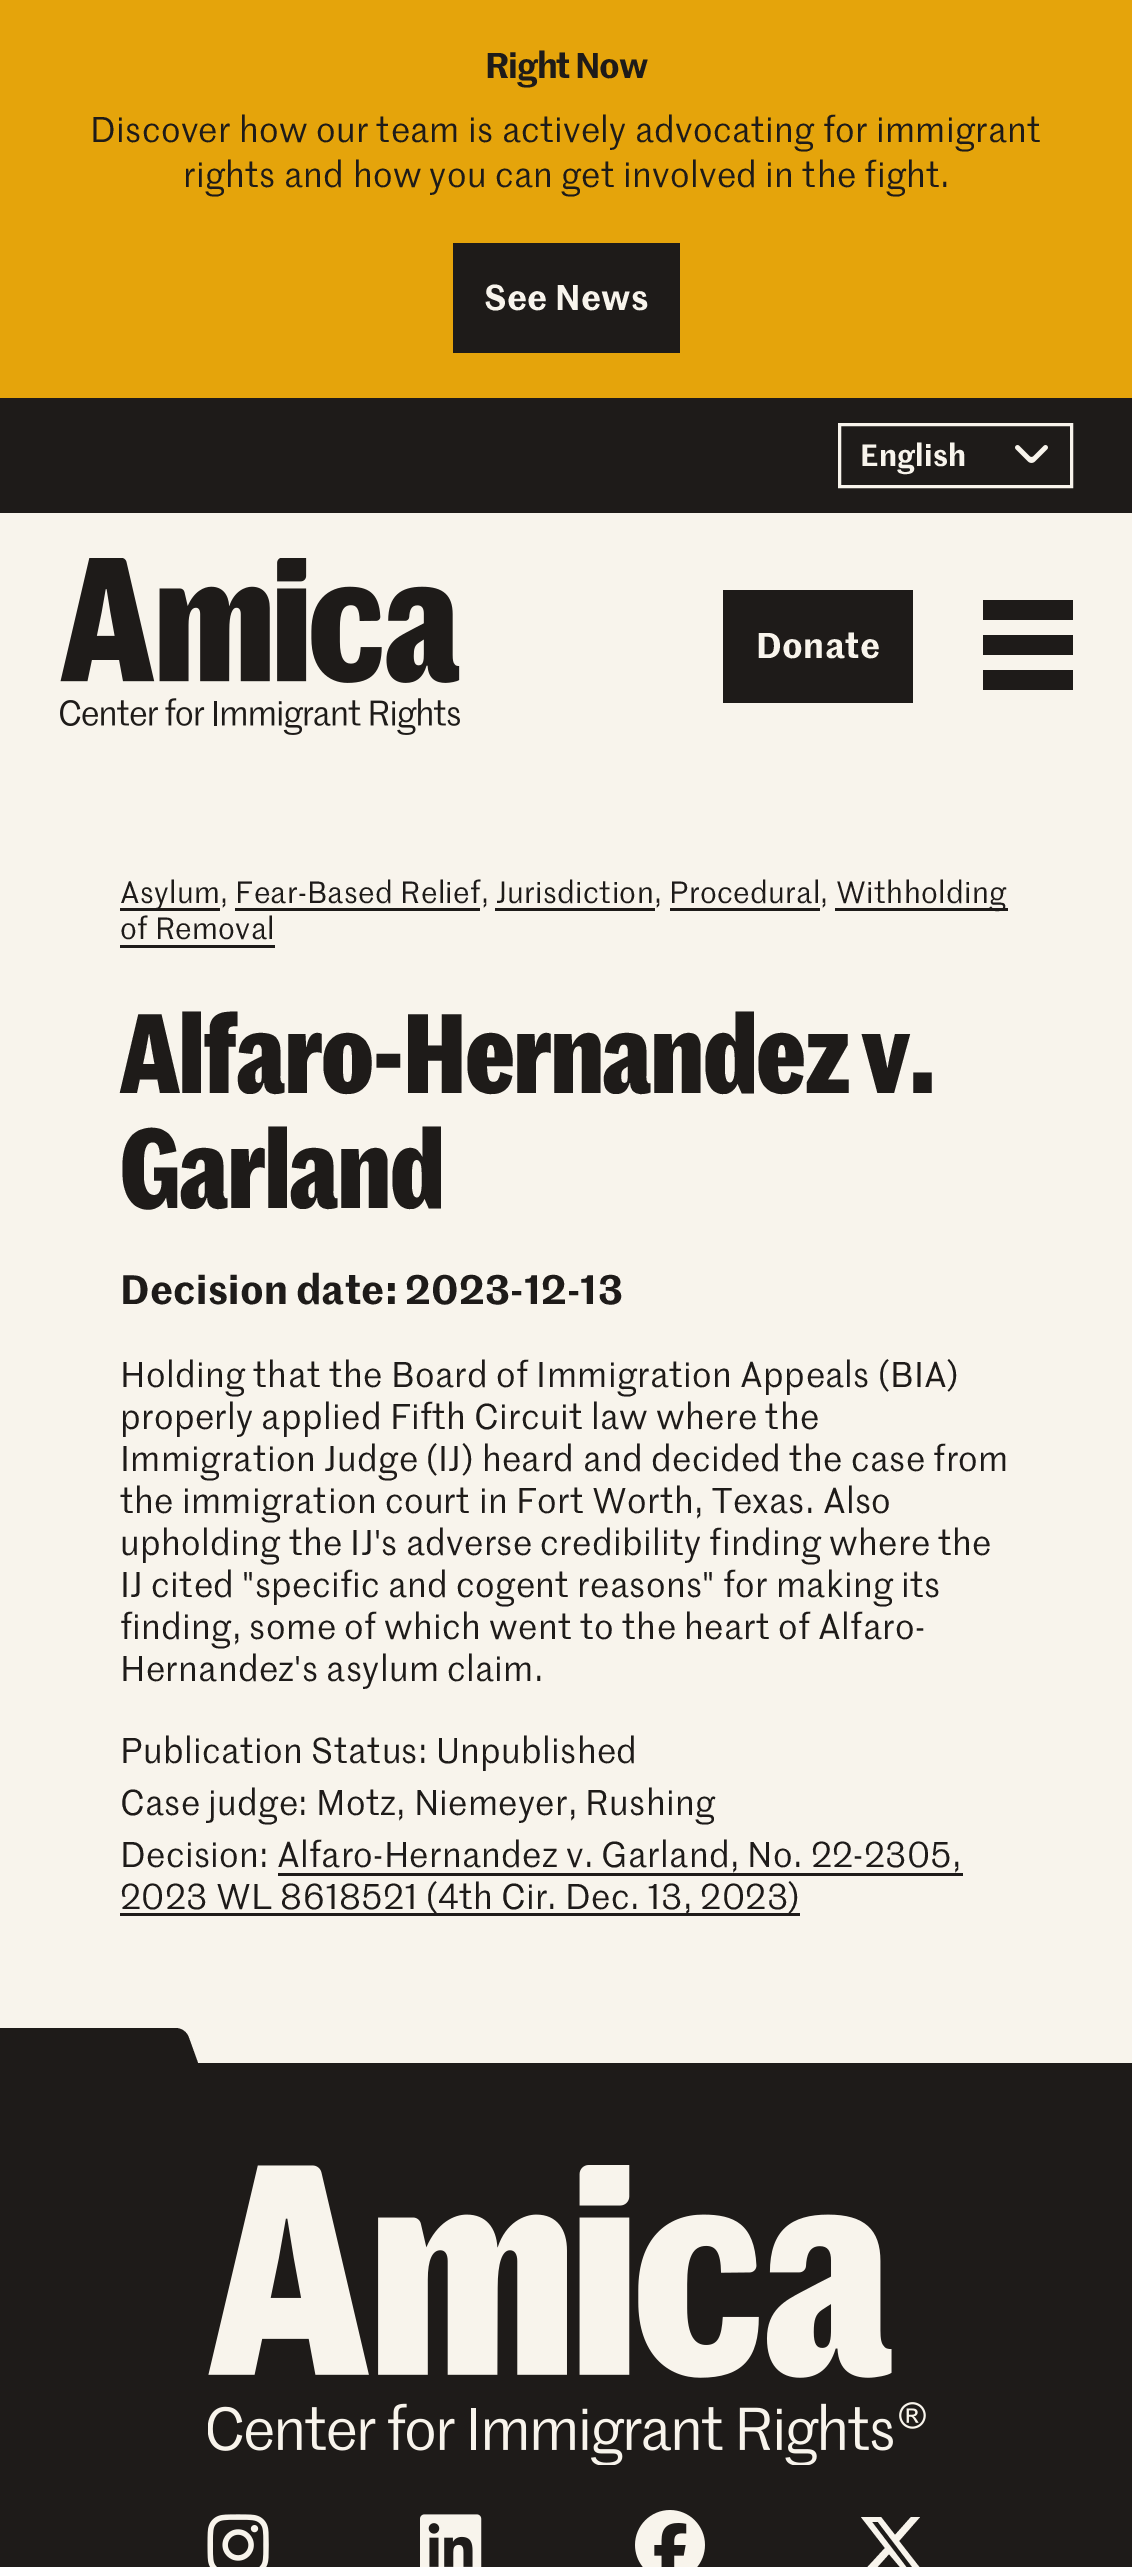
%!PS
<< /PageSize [1132 2567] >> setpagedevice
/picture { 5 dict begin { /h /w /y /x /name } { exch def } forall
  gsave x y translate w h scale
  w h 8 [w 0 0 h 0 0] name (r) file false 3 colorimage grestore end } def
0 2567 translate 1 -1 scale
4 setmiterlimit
0.973 0.957 0.925 setrgbcolor
0 0 1132 2567 rectfill
0.898 0.643 0.043 setrgbcolor
0 0 1132 398 rectfill
/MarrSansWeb-SemiBold [35 0 0 -35 0 0] selectfont
0.118 0.106 0.098 setrgbcolor
485 78 moveto -1.25 0 (Right Now) ashow
/MarrSansWeb-Regular [35 0 0 -35 0 0] selectfont
90 142 moveto 0.3 0 (Discover how our team is actively advocating for immigrant) ashow
183 187 moveto 0.3 0 (rights and how you can get involved in the fight.) ashow
453 243 227 110 rectfill
/MarrSansWeb-SemiBold [35 0 0 -35 0 0] selectfont
0.973 0.957 0.925 setrgbcolor
484 310 moveto 0.3 0 (See News) ashow
0.118 0.106 0.098 setrgbcolor
0 398 1132 115 rectfill
0.973 0.957 0.925 setrgbcolor
3 setlinewidth
839.5 424.5 232 62 rectstroke
/MarrSansWeb-SemiBold [30 0 0 -30 0 0] selectfont
860 466 moveto 0.3 0 (English) ashow
(img1.rgb) 1015 445 33 18 picture
(img2.rgb) 60 558 400 177 picture
0.118 0.106 0.098 setrgbcolor
723 590 190 113 rectfill
/MarrSansWeb-SemiBold [35 0 0 -35 0 0] selectfont
0.973 0.957 0.925 setrgbcolor
756 658 moveto 0.3 0 (Donate) ashow
0.118 0.106 0.098 setrgbcolor
983 635 90 20 rectfill
983 600 90 20 rectfill
983 670 90 20 rectfill
120 908 100 3 rectfill
/MarrSansWeb-Regular [30 0 0 -30 0 0] selectfont
120 903 moveto 0.3 0 (Asylum, Fear-Based Relief, Jurisdiction, Procedural,) ashow
835 908 173 3 rectfill
836 903 moveto 0.3 0 (Withholding) ashow
235 908 245 3 rectfill
495 908 160 3 rectfill
670 908 150 3 rectfill
120 939 moveto 0.3 0 (of Removal) ashow
120 945 155 3 rectfill
/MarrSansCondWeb-Bold [110 0 0 -110 0 0] selectfont
120 1093 moveto -1.1 0 (Alfaro-Hernandez v.) ashow
120 1208 moveto -1.1 0 (Garland) ashow
/MarrSansWeb-SemiBold [40 0 0 -40 0 0] selectfont
120 1304 moveto 0.3 0 (Decision date: 2023-12-13) ashow
/MarrSansWeb-Regular [35 0 0 -35 0 0] selectfont
120 1387 moveto 0.3 0 (Holding that the Board of Immigration Appeals \(BIA\)) ashow
120 1429 moveto 0.3 0 (properly applied Fifth Circuit law where the) ashow
120 1471 moveto 0.3 0 (Immigration Judge \(IJ\) heard and decided the case from) ashow
120 1513 moveto 0.3 0 (the immigration court in Fort Worth, Texas. Also) ashow
120 1555 moveto 0.3 0 (upholding the IJ's adverse credibility finding where the) ashow
120 1597 moveto 0.3 0 (IJ cited "specific and cogent reasons" for making its) ashow
120 1639 moveto 0.3 0 (finding, some of which went to the heart of Alfaro-) ashow
120 1681 moveto 0.3 0 (Hernandez's asylum claim.) ashow
120 1763 moveto 0.3 0 (Publication Status: Unpublished) ashow
120 1815 moveto 0.3 0 (Case judge: Motz, Niemeyer, Rushing) ashow
120 1867 moveto 0.3 0 (Decision: Alfaro-Hernandez v. Garland, No. 22-2305,) ashow
120 1913 680 3 rectfill
120 1909 moveto 0.3 0 (2023 WL 8618521 \(4th Cir. Dec. 13, 2023\)) ashow
278 1873 685 3 rectfill
0 2063 1132 504 rectfill
newpath 189 2038 moveto 187 2032 182 2028 175 2028 curveto 0 2028 lineto 0 2063 lineto 198 2063 lineto closepath fill
(img3.rgb) 208 2165 718 300 picture
(img4.rgb) 207 2514 62 53 picture
(img5.rgb) 420 2514 62 53 picture
(img6.rgb) 635 2510 70 57 picture
0.973 0.957 0.925 setrgbcolor
newpath 911 2517 moveto 920 2517 lineto 899 2541 lineto 924 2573 lineto 905 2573 lineto 889 2554 lineto 872 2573 lineto 862 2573 lineto 885 2548 lineto 861 2517 lineto 881 2517 lineto 895 2535 lineto closepath 907 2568 moveto 913 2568 lineto 878 2522 lineto 872 2522 lineto closepath fill
showpage
